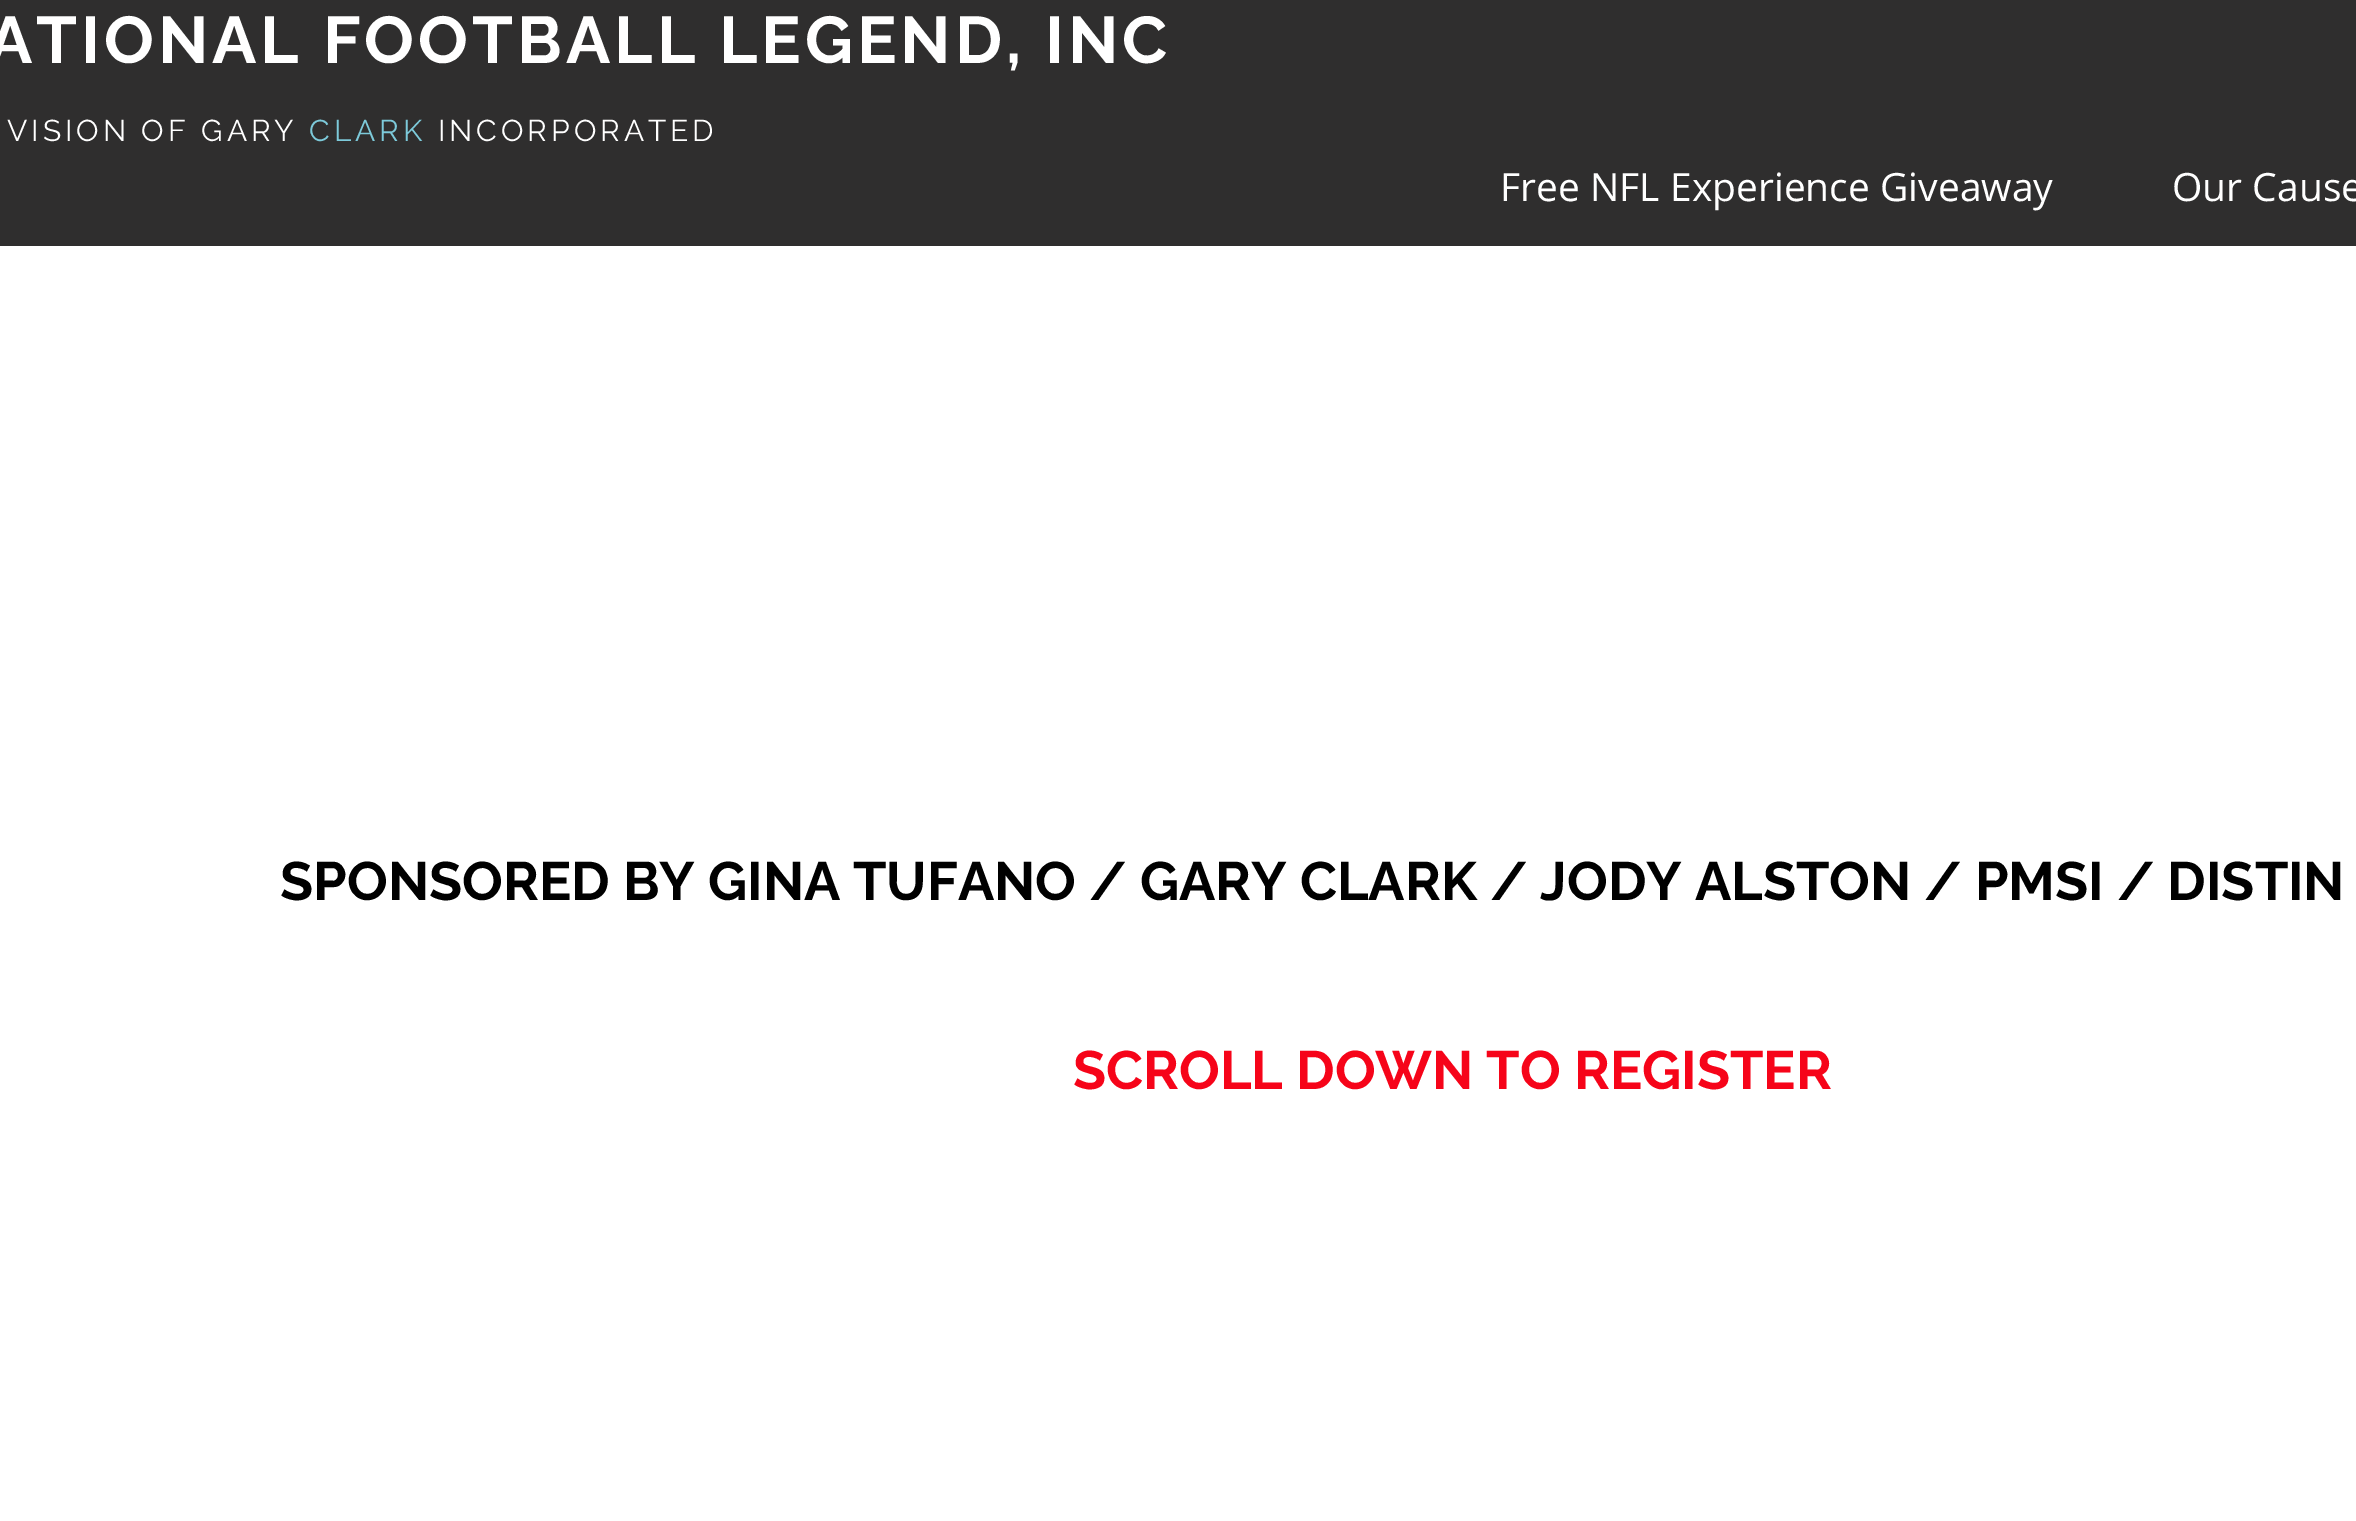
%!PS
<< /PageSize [2356 1521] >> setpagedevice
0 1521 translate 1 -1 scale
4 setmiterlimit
1 setgray
0 0 2356 1521 rectfill
0.184 0.18 0.18 setrgbcolor
0 0 2356 246 rectfill
/Raleway-Bold [66 0 0 -66 0 0] selectfont
1 setgray
-12 63 moveto 3.95 0 (ATIONAL FOOTBALL LEGEND, INC) ashow
/Raleway-Regular [30 0 0 -30 0 0] selectfont
7 141 moveto 3.95 0 (VISION OF GARY) ashow
0.49 0.792 0.855 setrgbcolor
309 141 moveto 3.95 0 (CLARK) ashow
1 setgray
438 141 moveto 3.95 0 (INCORPORATED) ashow
/OpenSans-Regular [39 0 0 -39 0 0] selectfont
1500 201 moveto (Free NFL Experience Giveaway) show
2172 201 moveto (Our Cause) show
/Raleway-Bold [54 0 0 -54 0 0] selectfont
0 setgray
280 900 moveto (SPONSORED BY GINA TUFANO / GARY CLARK / JODY ALSTON / PMSI / DISTIN) show
0.965 0.016 0.098 setrgbcolor
1073 1089 moveto (SCROLL DOWN TO REGISTER) show
showpage
